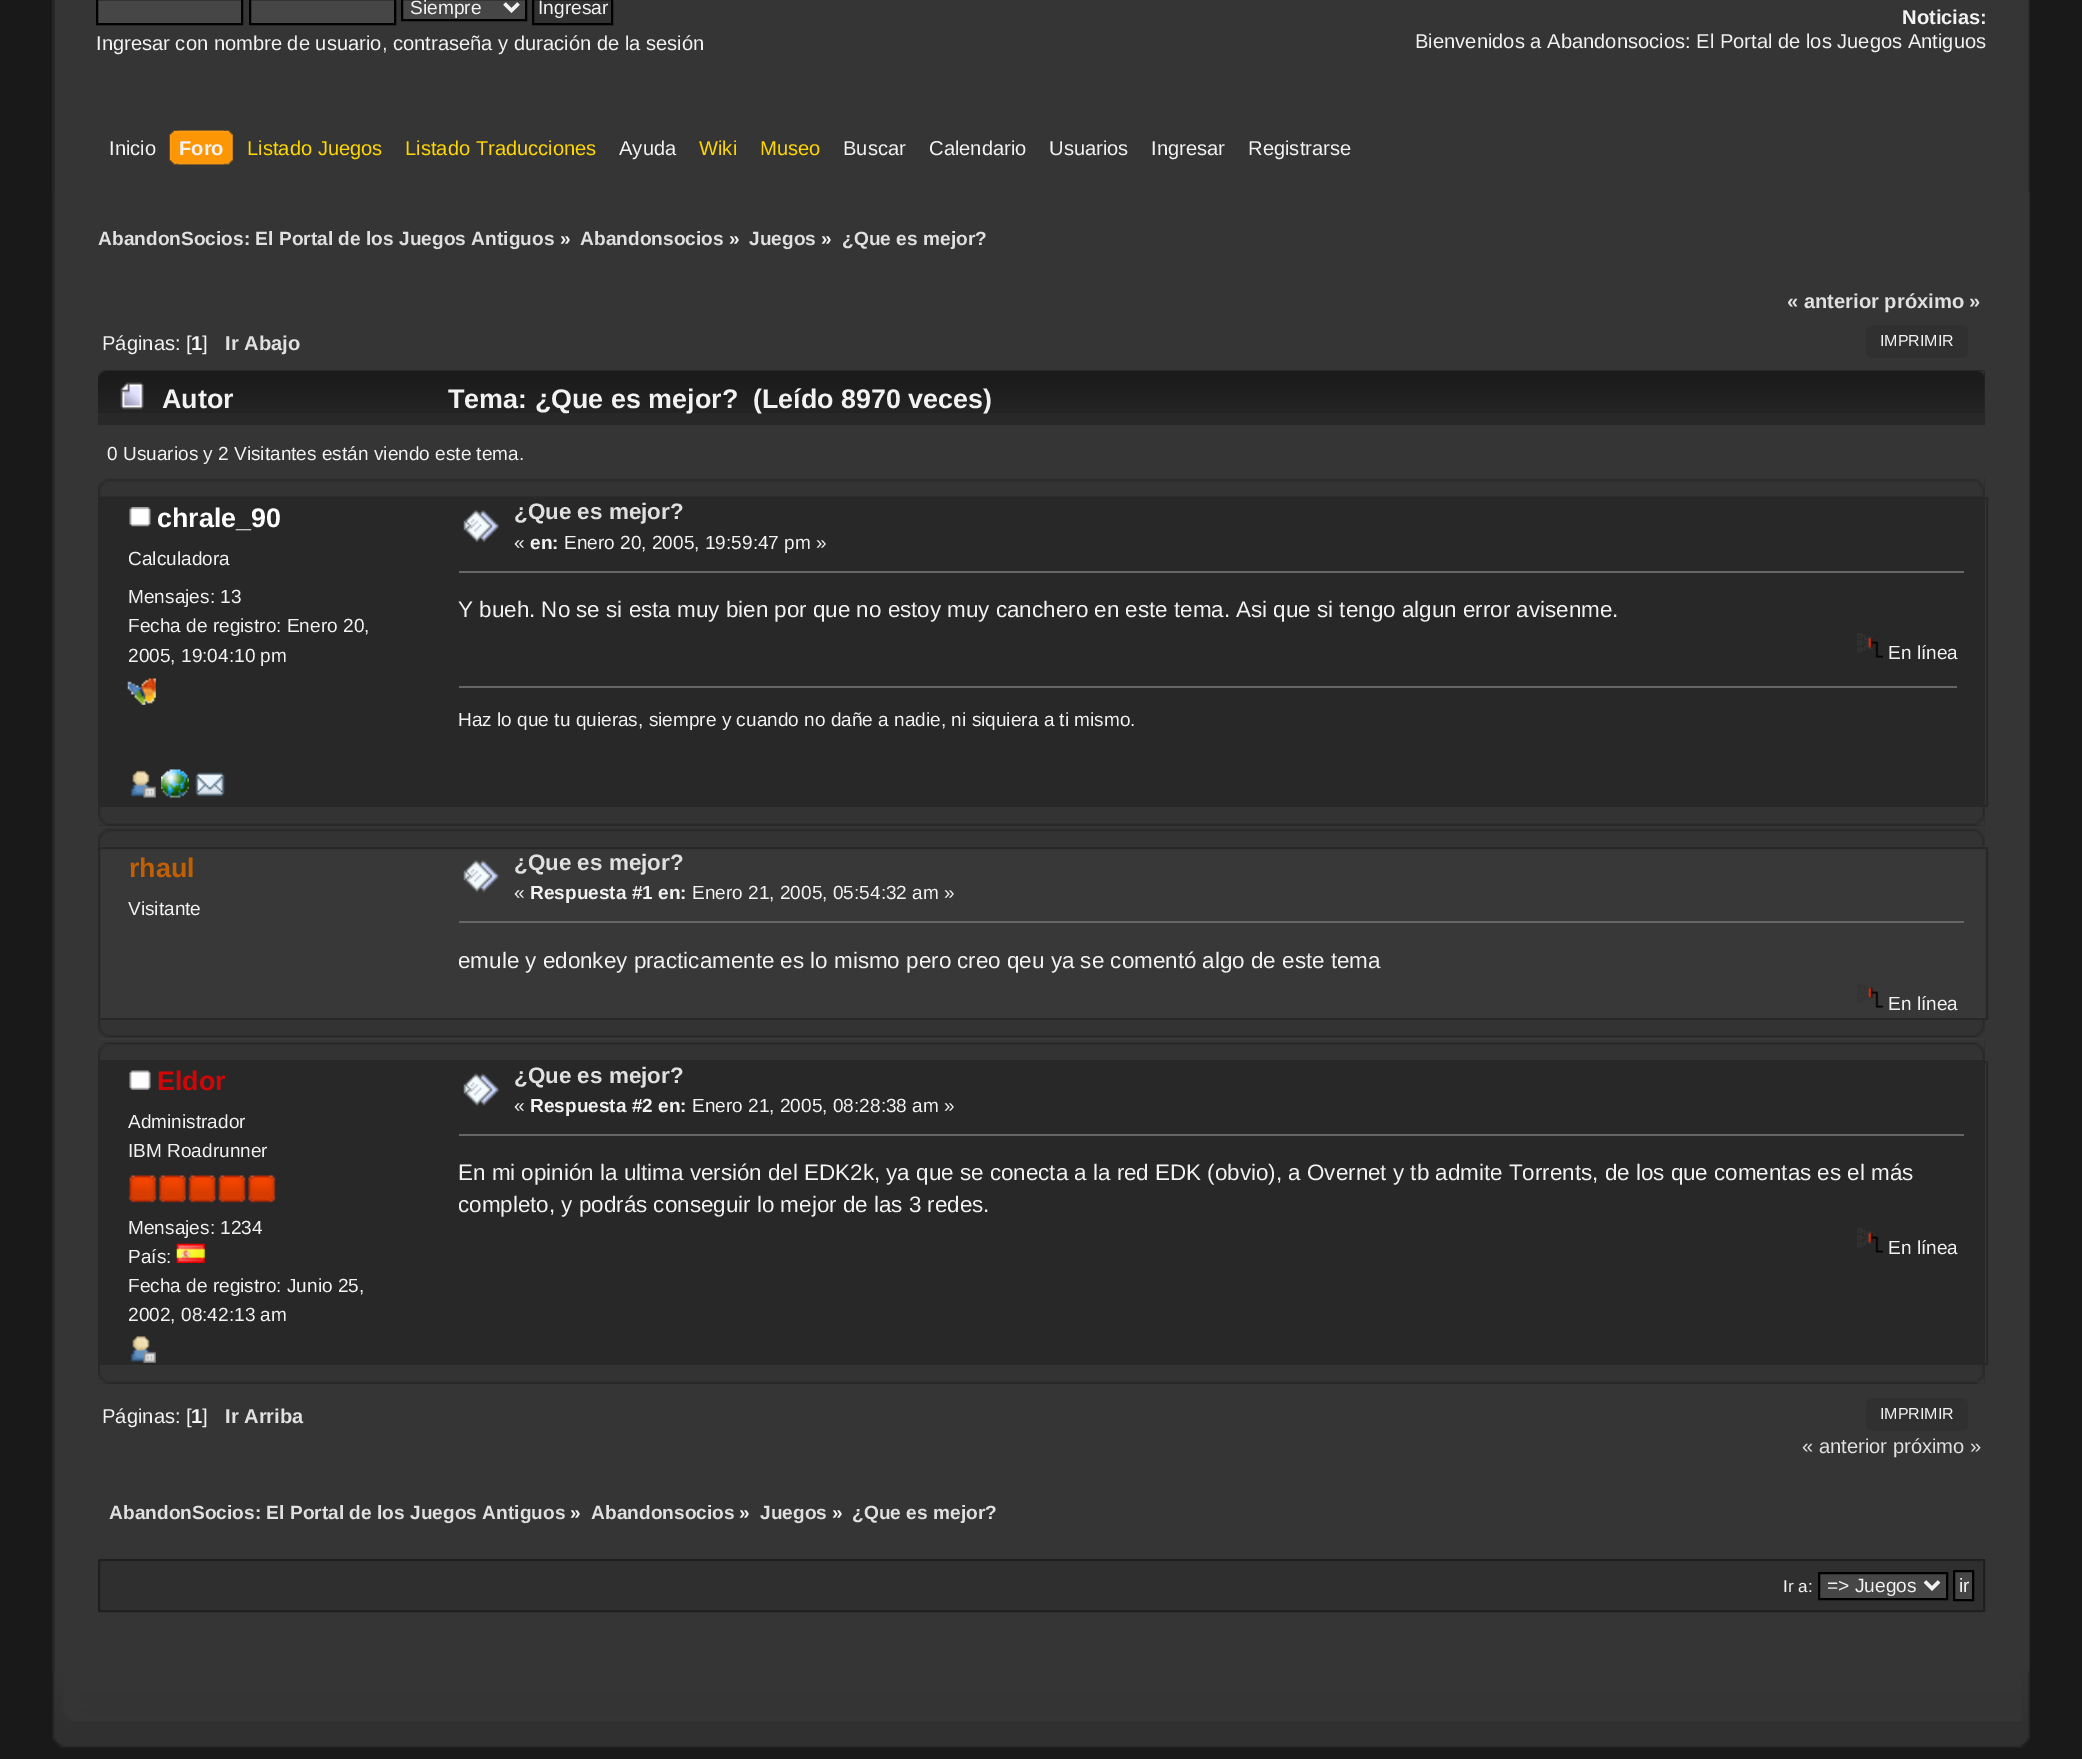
%!PS
<< /PageSize [2082 1759] >> setpagedevice
/picture { 5 dict begin { /h /w /y /x /name } { exch def } forall
  gsave x y translate w h scale
  w h 8 [w 0 0 h 0 0] name (r) file false 3 colorimage grestore end } def
0 1759 translate 1 -1 scale
4 setmiterlimit
0.098 setgray
0 0 2082 1759 rectfill
0.208 setgray
55 0 1974 193 rectfill
0.149 setgray
52 0 3 192 rectfill
(img1.rgb) 2028 0 2 192 picture
0.275 setgray
newpath 97 -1 moveto 242 -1 lineto 242 24 lineto 97 24 lineto closepath gsave fill grestore
0 setgray
2 setlinewidth
stroke
0.275 setgray
newpath 250 -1 moveto 395 -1 lineto 395 24 lineto 250 24 lineto closepath gsave fill grestore
0 setgray
stroke
0.275 setgray
newpath 402 -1 moveto 526 -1 lineto 526 20 lineto 402 20 lineto closepath gsave fill grestore
0 setgray
stroke
0.949 setgray
3.5 setlinewidth
newpath 504.5 3.5 moveto 511.5 10.5 lineto 518.5 3.5 lineto stroke
/LiberationSans-Regular [19.15 0 0 -19.15 0 0] selectfont
410 14 moveto (Siempre) show
0.192 setgray
newpath 533 -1 moveto 612 -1 lineto 612 24 lineto 533 24 lineto closepath gsave fill grestore
0 setgray
2 setlinewidth
stroke
0.949 setgray
538 14 moveto (Ingresar) show
/LiberationSans-Regular [20.15 0 0 -20.15 0 0] selectfont
96 50 moveto (Ingresar con nombre de usuario, contraseña y duración de la sesión) show
/LiberationSans-Bold [20.15 0 0 -20.15 0 0] selectfont
1902 24 moveto (Noticias:) show
/LiberationSans-Regular [20.15 0 0 -20.15 0 0] selectfont
1415 48 moveto (Bienvenidos a Abandonsocios: El Portal de los Juegos Antiguos) show
109 155 moveto (Inicio) show
(img2.rgb) 178 130 55 35 picture
(img3.rgb) 169 130 55 35 picture
/LiberationSans-Bold [20.15 0 0 -20.15 0 0] selectfont
179 155 moveto (Foro) show
/LiberationSans-Regular [20.15 0 0 -20.15 0 0] selectfont
1 0.843 0 setrgbcolor
247 155 moveto (Listado Juegos) show
405 155 moveto (Listado Traducciones) show
0.949 setgray
619 155 moveto (Ayuda) show
1 0.843 0 setrgbcolor
699 155 moveto (Wiki) show
760 155 moveto (Museo) show
0.949 setgray
843 155 moveto (Buscar) show
929 155 moveto (Calendario) show
1049 155 moveto (Usuarios) show
1151 155 moveto (Ingresar) show
1248 155 moveto (Registrarse) show
0.208 setgray
55 193 1975 1478 rectfill
0.153 setgray
52 192 3 1479 rectfill
(img4.rgb) 2029 192 1 1479 picture
/LiberationSans-Bold [19.15 0 0 -19.15 0 0] selectfont
0.878 setgray
98 245 moveto (AbandonSocios: El Portal de los Juegos Antiguos) show
0.949 setgray
560 245 moveto (») show
0.878 setgray
580 245 moveto (Abandonsocios) show
0.949 setgray
729 245 moveto (») show
0.878 setgray
749 245 moveto (Juegos) show
0.949 setgray
821 245 moveto (») show
0.878 setgray
842 245 moveto (¿Que es mejor?) show
/LiberationSans-Bold [20.15 0 0 -20.15 0 0] selectfont
1787 308 moveto (« anterior próximo ») show
/LiberationSans-Regular [20.15 0 0 -20.15 0 0] selectfont
0.949 setgray
102 350 moveto (Páginas: [) show
/LiberationSans-Bold [20.15 0 0 -20.15 0 0] selectfont
191 350 moveto (1) show
/LiberationSans-Regular [20.15 0 0 -20.15 0 0] selectfont
202 350 moveto (]) show
/LiberationSans-Bold [20.15 0 0 -20.15 0 0] selectfont
0.878 setgray
225 350 moveto (Ir Abajo) show
(img5.rgb) 1866 325 14 33 picture
(img6.rgb) 1880 325 88 33 picture
/LiberationSans-Regular [16 0 0 -16 0 0] selectfont
0.949 setgray
1880 346 moveto (IMPRIMIR) show
0.157 setgray
98 371 1887 54 rectfill
(img7.rgb) 98 370 1887 43 picture
(img8.rgb) 1978 371 7 5 picture
(img9.rgb) 120 382 24 28 picture
/LiberationSans-Bold [26.9 0 0 -26.9 0 0] selectfont
0.949 setgray
162 408 moveto (Autor) show
448 408 moveto (Tema: ¿Que es mejor?  \(Leído 8970 veces\)) show
/LiberationSans-Regular [19.05 0 0 -19.05 0 0] selectfont
107 460 moveto (0 Usuarios y 2 Visitantes están viendo este tema.) show
0.157 setgray
98 478 1887 348 rectfill
(img10.rgb) 98 478 1887 19 picture
(img11.rgb) 1977 479 8 17 picture
99 498 1888 308 rectstroke
(img12.rgb) 129 507 22 20 picture
/LiberationSans-Bold [26.9 0 0 -26.9 0 0] selectfont
1 setgray
157 527 moveto (chrale_90) show
/LiberationSans-Regular [19.05 0 0 -19.05 0 0] selectfont
0.949 setgray
128 565 moveto (Calculadora) show
128 603 moveto (Mensajes: 13) show
128 632 moveto (Fecha de registro: Enero 20,) show
128 662 moveto (2005, 19:04:10 pm) show
(img13.rgb) 127 678 29 27 picture
(img14.rgb) 130 770 26 28 picture
(img15.rgb) 161 769 28 29 picture
(img16.rgb) 195 772 30 25 picture
(img17.rgb) 463 510 36 33 picture
/LiberationSans-Bold [22.4 0 0 -22.4 0 0] selectfont
0.878 setgray
514 519 moveto (¿Que es mejor?) show
/LiberationSans-Regular [19.05 0 0 -19.05 0 0] selectfont
0.949 setgray
514 549 moveto («) show
/LiberationSans-Bold [19.05 0 0 -19.05 0 0] selectfont
530 549 moveto (en:) show
/LiberationSans-Regular [19.05 0 0 -19.05 0 0] selectfont
564 549 moveto (Enero 20, 2005, 19:59:47 pm ») show
0.4 setgray
459 571 1505 2 rectfill
/LiberationSans-Regular [22.4 0 0 -22.4 0 0] selectfont
0.949 setgray
458 617 moveto (Y bueh. No se si esta muy bien por que no estoy muy canchero en este tema. Asi que si tengo algun error avisenme.) show
(img18.rgb) 1857 633 26 25 picture
/LiberationSans-Regular [19.05 0 0 -19.05 0 0] selectfont
1888 659 moveto (En línea) show
0.4 setgray
459 686 1498 2 rectfill
0.949 setgray
458 726 moveto (Haz lo que tu quieras, siempre y cuando no dañe a nadie, ni siquiera a ti mismo.) show
(img19.rgb) 98 807 1887 19 picture
(img20.rgb) 1976 807 9 19 picture
0.22 setgray
98 828 1887 212 rectfill
(img21.rgb) 98 828 1887 19 picture
(img22.rgb) 1977 829 8 18 picture
0.157 setgray
99 848 1888 171 rectstroke
/LiberationSans-Bold [26.9 0 0 -26.9 0 0] selectfont
0.753 0.376 0.008 setrgbcolor
129 877 moveto (rhaul) show
/LiberationSans-Regular [19.05 0 0 -19.05 0 0] selectfont
0.949 setgray
128 915 moveto (Visitante) show
(img23.rgb) 463 860 36 33 picture
/LiberationSans-Bold [22.4 0 0 -22.4 0 0] selectfont
0.878 setgray
514 870 moveto (¿Que es mejor?) show
/LiberationSans-Regular [19.05 0 0 -19.05 0 0] selectfont
0.949 setgray
514 899 moveto («) show
/LiberationSans-Bold [19.05 0 0 -19.05 0 0] selectfont
530 899 moveto (Respuesta #1 en:) show
/LiberationSans-Regular [19.05 0 0 -19.05 0 0] selectfont
692 899 moveto (Enero 21, 2005, 05:54:32 am ») show
0.4 setgray
459 921 1505 2 rectfill
gsave
459 919 1527 63 rectclip
/LiberationSans-Regular [22.4 0 0 -22.4 0 0] selectfont
0.949 setgray
458 968 moveto (emule y edonkey practicamente es lo mismo pero creo qeu ya se comentó algo de este tema) show
grestore
(img24.rgb) 1857 984 26 24 picture
0.949 setgray
1888 1010 moveto (En línea) show
(img25.rgb) 98 1020 1887 18 picture
(img26.rgb) 1976 1020 9 18 picture
0.157 setgray
98 1041 1887 343 rectfill
(img27.rgb) 98 1041 1887 19 picture
(img28.rgb) 1976 1042 9 18 picture
99 1062 1888 302 rectstroke
(img29.rgb) 129 1070 22 20 picture
/LiberationSans-Bold [26.9 0 0 -26.9 0 0] selectfont
0.82 0.027 0.027 setrgbcolor
157 1090 moveto (Eldor) show
/LiberationSans-Regular [19.05 0 0 -19.05 0 0] selectfont
0.949 setgray
128 1128 moveto (Administrador) show
128 1157 moveto (IBM Roadrunner) show
(img30.rgb) 129 1175 28 28 picture
(img31.rgb) 158 1175 28 28 picture
(img32.rgb) 188 1175 28 28 picture
(img33.rgb) 218 1175 28 28 picture
(img30.rgb) 248 1175 28 28 picture
128 1234 moveto (Mensajes: 1234) show
128 1263 moveto (País:) show
(img34.rgb) 176 1243 29 20 picture
128 1292 moveto (Fecha de registro: Junio 25,) show
128 1321 moveto (2002, 08:42:13 am) show
(img35.rgb) 130 1336 26 27 picture
(img36.rgb) 463 1073 36 33 picture
/LiberationSans-Bold [22.4 0 0 -22.4 0 0] selectfont
0.878 setgray
514 1083 moveto (¿Que es mejor?) show
/LiberationSans-Regular [19.05 0 0 -19.05 0 0] selectfont
0.949 setgray
514 1112 moveto («) show
/LiberationSans-Bold [19.05 0 0 -19.05 0 0] selectfont
530 1112 moveto (Respuesta #2 en:) show
/LiberationSans-Regular [19.05 0 0 -19.05 0 0] selectfont
692 1112 moveto (Enero 21, 2005, 08:28:38 am ») show
0.4 setgray
459 1134 1505 2 rectfill
/LiberationSans-Regular [22.4 0 0 -22.4 0 0] selectfont
0.949 setgray
458 1180 moveto (En mi opinión la ultima versión del EDK2k, ya que se conecta a la red EDK \(obvio\), a Overnet y tb admite Torrents, de los que comentas es el más) show
gsave
459 1131 1527 96 rectclip
458 1212 moveto (completo, y podrás conseguir lo mejor de las 3 redes.) show
grestore
(img18.rgb) 1857 1228 26 25 picture
/LiberationSans-Regular [19.05 0 0 -19.05 0 0] selectfont
1888 1254 moveto (En línea) show
(img37.rgb) 98 1365 1887 19 picture
(img38.rgb) 1977 1365 8 19 picture
/LiberationSans-Regular [20.15 0 0 -20.15 0 0] selectfont
102 1423 moveto (Páginas: [) show
/LiberationSans-Bold [20.15 0 0 -20.15 0 0] selectfont
191 1423 moveto (1) show
/LiberationSans-Regular [20.15 0 0 -20.15 0 0] selectfont
202 1423 moveto (]) show
/LiberationSans-Bold [20.15 0 0 -20.15 0 0] selectfont
0.878 setgray
225 1423 moveto (Ir Arriba) show
(img39.rgb) 1866 1398 14 33 picture
(img40.rgb) 1880 1398 88 33 picture
/LiberationSans-Regular [16 0 0 -16 0 0] selectfont
0.949 setgray
1880 1419 moveto (IMPRIMIR) show
/LiberationSans-Regular [20.15 0 0 -20.15 0 0] selectfont
0.878 setgray
1802 1453 moveto (« anterior próximo ») show
/LiberationSans-Bold [19.15 0 0 -19.15 0 0] selectfont
109 1519 moveto (AbandonSocios: El Portal de los Juegos Antiguos) show
0.949 setgray
570 1519 moveto (») show
0.878 setgray
591 1519 moveto (Abandonsocios) show
0.949 setgray
739 1519 moveto (») show
0.878 setgray
760 1519 moveto (Juegos) show
0.949 setgray
832 1519 moveto (») show
0.878 setgray
852 1519 moveto (¿Que es mejor?) show
0.184 setgray
newpath 99 1560 moveto 1984 1560 lineto 1984 1611 lineto 99 1611 lineto closepath gsave fill grestore
0.125 setgray
stroke
/LiberationSans-Regular [17 0 0 -17 0 0] selectfont
0.949 setgray
1783 1592 moveto (Ir a:) show
0.275 setgray
newpath 1819 1573 moveto 1947 1573 lineto 1947 1599 lineto 1819 1599 lineto closepath gsave fill grestore
0 setgray
stroke
0.949 setgray
3.5 setlinewidth
newpath 1925 1581.5 moveto 1932 1588.5 lineto 1939 1581.5 lineto stroke
/LiberationSans-Regular [19.15 0 0 -19.15 0 0] selectfont
1827 1592 moveto (=> Juegos) show
0.275 setgray
newpath 1954 1571 moveto 1973 1571 lineto 1973 1600 lineto 1954 1600 lineto closepath gsave fill grestore
0 setgray
2 setlinewidth
stroke
0.949 setgray
1959 1592 moveto (ir) show
(img41.rgb) 52 1671 1978 77 picture
(img42.rgb) 2021 1671 9 77 picture
showpage
